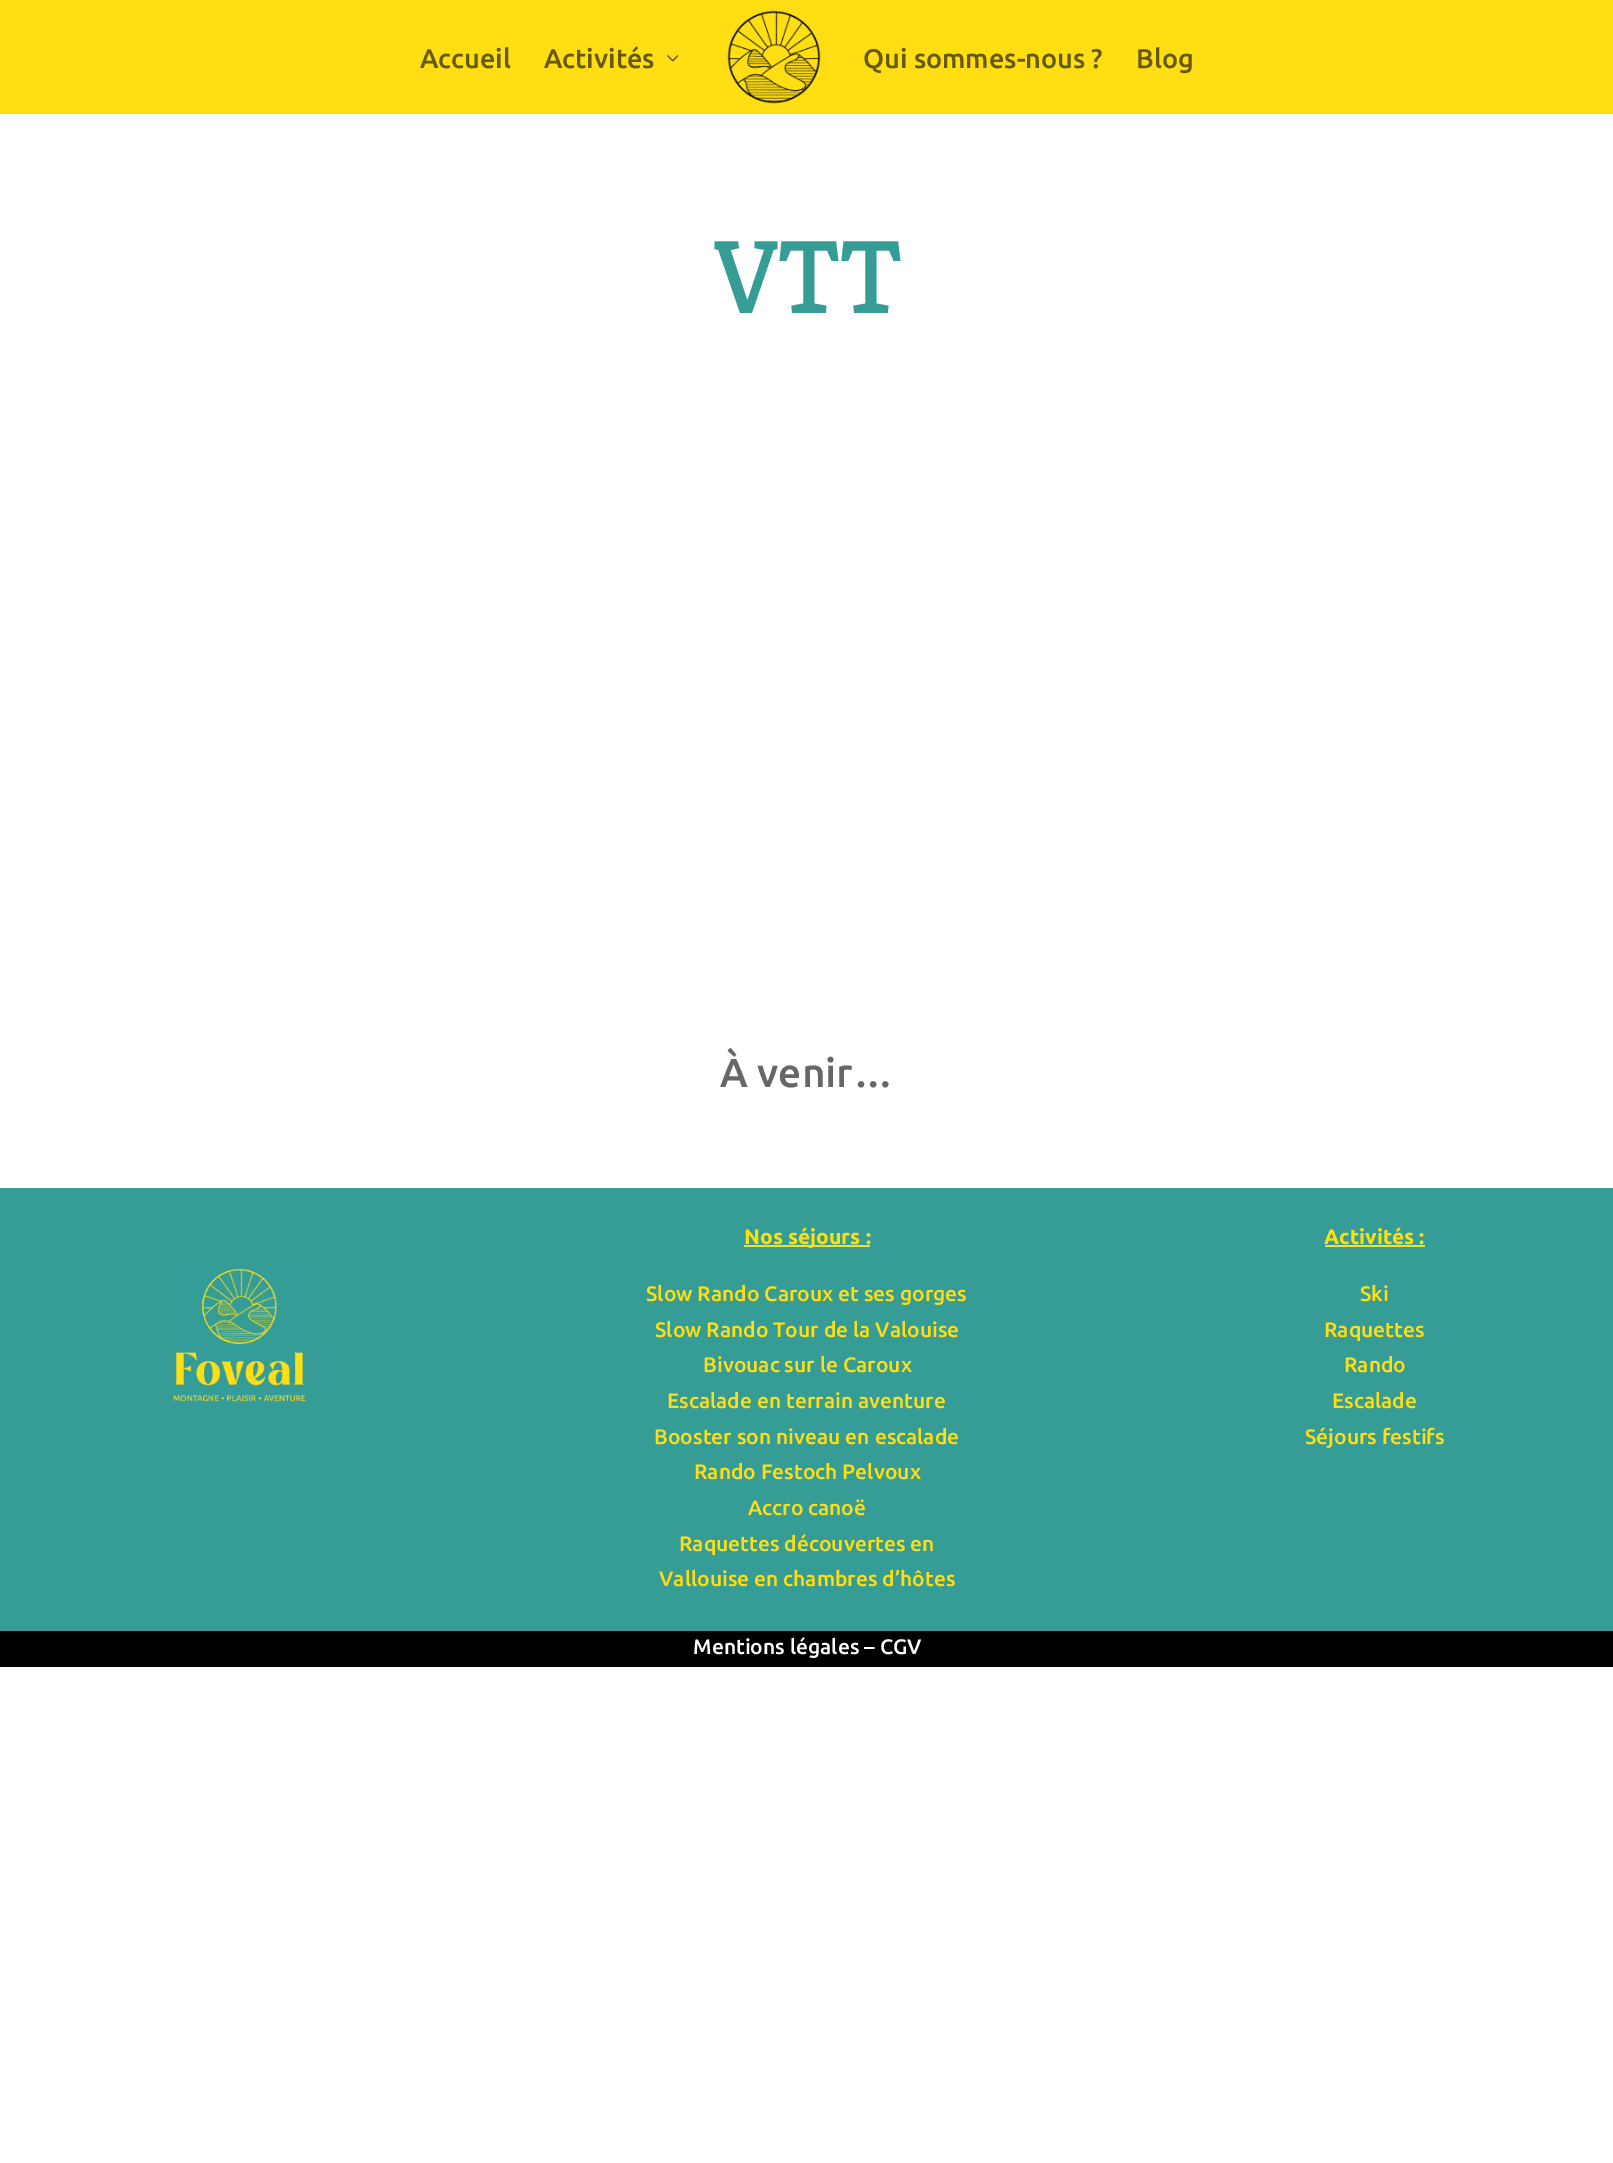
%!PS
<< /PageSize [1613 2163] >> setpagedevice
/picture { 5 dict begin { /h /w /y /x /name } { exch def } forall
  gsave x y translate w h scale
  w h 8 [w 0 0 h 0 0] name (r) file false 3 colorimage grestore end } def
0 2163 translate 1 -1 scale
4 setmiterlimit
1 setgray
0 0 1613 2163 rectfill
1 0.871 0.075 setrgbcolor
0 0 1613 114 rectfill
/Ubuntu-Medium [27 0 0 -27 0 0] selectfont
0.4 0.349 0.031 setrgbcolor
420 68 moveto (Accueil) show
544 68 moveto (Activités) show
(img1.rgb) 667 55 12 7 picture
(img2.rgb) 727 10 94 94 picture
863 68 moveto (Qui sommes-nous ?) show
1136 68 moveto (Blog) show
/Kreon-Medium [104 0 0 -104 0 0] selectfont
0.208 0.612 0.588 setrgbcolor
714 313 moveto (VTT) show
/Ubuntu-Medium [40.5 0 0 -40.5 0 0] selectfont
0.4 setgray
720 1087 moveto (À venir…) show
0.208 0.612 0.588 setrgbcolor
0 1188 1613 443 rectfill
(img3.rgb) 173 1268 133 134 picture
1 0.871 0.075 setrgbcolor
744 1245 126 2 rectfill
/Ubuntu-Bold [21 0 0 -21 0 0] selectfont
744 1244 moveto (Nos séjours :) show
/Ubuntu-Medium [21 0 0 -21 0 0] selectfont
646 1301 moveto (Slow Rando Caroux et ses gorges) show
655 1337 moveto (Slow Rando Tour de la Valouise) show
703 1372 moveto (Bivouac sur le Caroux) show
667 1408 moveto (Escalade en terrain aventure) show
654 1444 moveto (Booster son niveau en escalade) show
694 1479 moveto (Rando Festoch Pelvoux) show
748 1515 moveto (Accro canoë) show
679 1551 moveto (Raquettes découvertes en) show
659 1586 moveto (Vallouise en chambres d’hôtes) show
/Ubuntu-Bold [21 0 0 -21 0 0] selectfont
1324 1244 moveto (Activités :) show
1325 1245 100 2 rectfill
/Ubuntu-Medium [21 0 0 -21 0 0] selectfont
1360 1301 moveto (Ski) show
1324 1337 moveto (Raquettes) show
1344 1372 moveto (Rando) show
1332 1408 moveto (Escalade) show
1305 1444 moveto (Séjours festifs) show
0 setgray
0 1631 1613 36 rectfill
1 setgray
693 1654 moveto (Mentions légales – CGV) show
showpage
